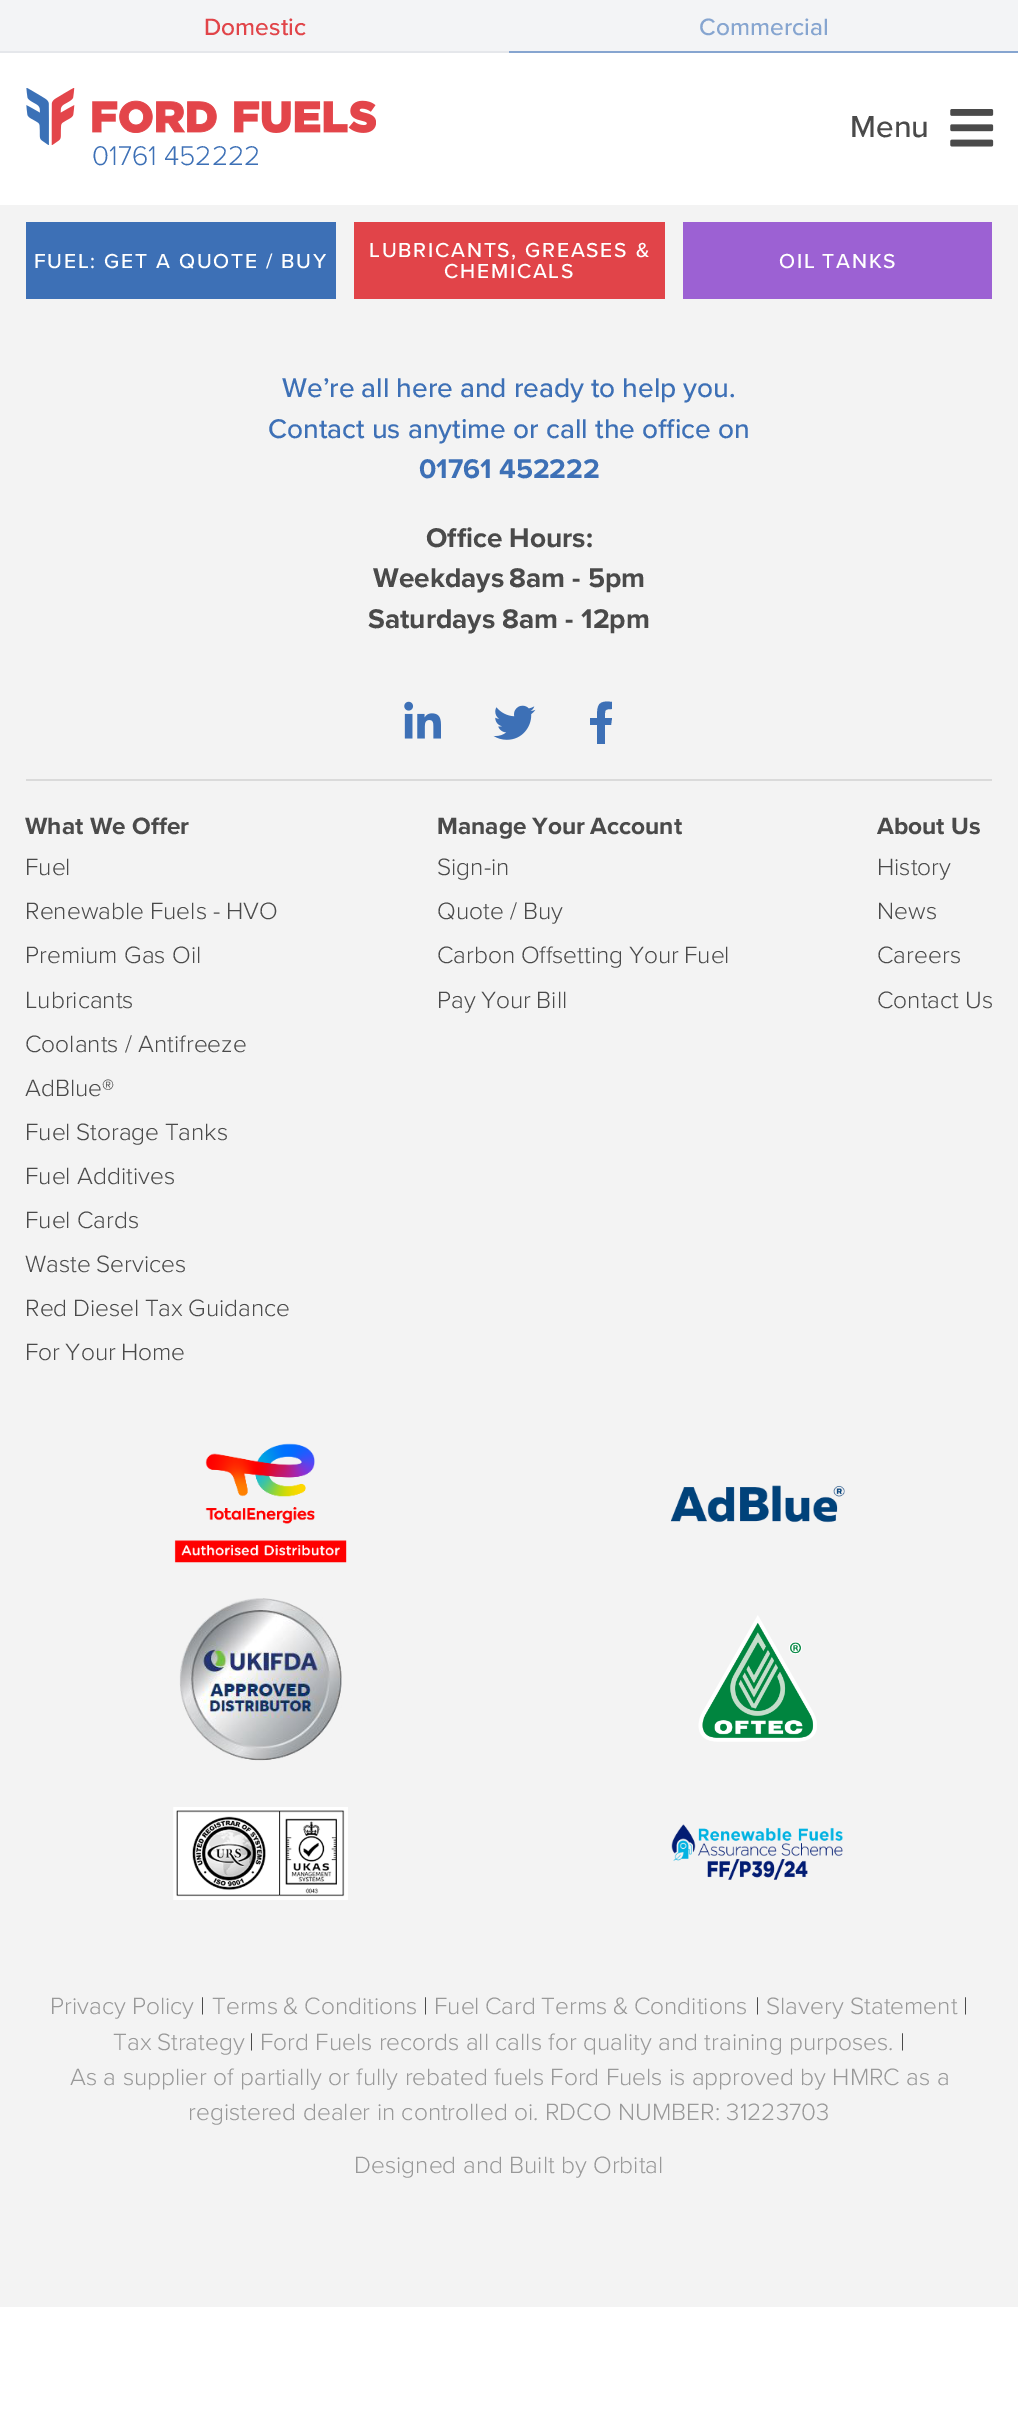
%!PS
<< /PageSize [1018 2436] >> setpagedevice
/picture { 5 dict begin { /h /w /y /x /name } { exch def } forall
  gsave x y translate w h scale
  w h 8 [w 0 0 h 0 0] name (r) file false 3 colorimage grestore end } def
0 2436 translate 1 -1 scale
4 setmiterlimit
1 setgray
0 0 1018 2436 rectfill
0.953 0.957 0.965 setrgbcolor
0 0 1018 51 rectfill
0.898 0.906 0.922 setrgbcolor
0 51 509 2 rectfill
/ProximaNova-Medium [24.5 0 0 -24.5 0 0] selectfont
0.882 0.267 0.286 setrgbcolor
204 35 moveto (Domestic) show
0.525 0.647 0.816 setrgbcolor
509 51 509 2 rectfill
699 35 moveto (Commercial) show
/ProximaNova-Medium [31.5 0 0 -31.5 0 0] selectfont
0.29 setgray
850 137 moveto (Menu) show
(img1.rgb) 950 109 44 38 picture
(img2.rgb) 26 88 350 57 picture
/ProximaNova-Light [28 0 0 -28 0 0] selectfont
0.239 0.439 0.714 setrgbcolor
92 165 moveto (01761 452222) show
0.953 setgray
0 205 1018 2102 rectfill
0.239 0.439 0.714 setrgbcolor
26 222 310 77 rectfill
/ProximaNova-Medium [21 0 0 -21 0 0] selectfont
1 setgray
34 268 moveto 1.75 0 (FUEL: GET A QUOTE / BUY) ashow
0.882 0.267 0.286 setrgbcolor
354 222 311 77 rectfill
1 setgray
369 257 moveto 1.75 0 (LUBRICANTS, GREASES &) ashow
444 278 moveto 1.75 0 (CHEMICALS) ashow
0.612 0.38 0.827 setrgbcolor
683 222 309 77 rectfill
1 setgray
779 268 moveto -1 0 32 1.75 0 (OIL TANKS) awidthshow
/ProximaNova-Medium [28 0 0 -28 0 0] selectfont
0.239 0.439 0.714 setrgbcolor
282 397 moveto -0.25 0 32 (We’re all here and ready to help you.) widthshow
268 438 moveto (Contact us anytime or call the office on) show
/ProximaNova-Bold [28 0 0 -28 0 0] selectfont
419 478 moveto (01761 452222) show
0.29 setgray
426 547 moveto (Office Hours:) show
373 587 moveto (Weekdays) show
509 587 moveto (8am - 5pm) show
368 628 moveto (Saturdays 8am - 12pm) show
(img3.rgb) 404 701 37 38 picture
(img4.rgb) 493 705 43 35 picture
0.239 0.439 0.714 setrgbcolor
newpath 611 725 moveto 612 718 lineto 605 718 lineto 605 710 604 709 612 709 curveto 612 702 lineto 598 700 597 705 597 718 curveto 590 718 lineto 590 725 lineto 597 725 lineto 597 744 lineto 605 744 lineto 605 725 lineto closepath fill
0.855 setgray
26 779 966 2 rectfill
/ProximaNova-Bold [24.5 0 0 -24.5 0 0] selectfont
0.29 setgray
25 834 moveto (What We Offer) show
/ProximaNova-Light [24.5 0 0 -24.5 0 0] selectfont
25 875 moveto (Fuel) show
25 919 moveto -0.5 0 32 (Renewable Fuels - HVO) widthshow
25 963 moveto (Premium Gas Oil) show
25 1008 moveto (Lubricants) show
25 1052 moveto (Coolants / Antifreeze) show
25 1096 moveto (AdBlue®) show
25 1140 moveto -1 0 32 (Fuel Storage Tanks) widthshow
25 1184 moveto (Fuel Additives) show
25 1228 moveto (Fuel Cards) show
25 1272 moveto -1 0 32 (Waste Services) widthshow
25 1316 moveto -1 0 32 (Red Diesel Tax Guidance) widthshow
25 1360 moveto -1 0 32 (For Your Home) widthshow
/ProximaNova-Bold [24.5 0 0 -24.5 0 0] selectfont
437 834 moveto -1 0 32 (Manage Your Account) widthshow
/ProximaNova-Light [24.5 0 0 -24.5 0 0] selectfont
437 875 moveto (Sign-in) show
437 919 moveto (Quote / Buy) show
437 963 moveto -1 0 32 (Carbon Offsetting Your Fuel) widthshow
437 1008 moveto -1 0 32 (Pay Your Bill) widthshow
/ProximaNova-Bold [24.5 0 0 -24.5 0 0] selectfont
877 834 moveto (About Us) show
/ProximaNova-Light [24.5 0 0 -24.5 0 0] selectfont
877 875 moveto (History) show
877 919 moveto (News) show
877 963 moveto (Careers) show
877 1008 moveto (Contact Us) show
(img5.rgb) 174 1443 173 120 picture
(img6.rgb) 670 1485 175 38 picture
(img7.rgb) 179 1598 163 163 picture
(img8.rgb) 698 1615 119 127 picture
(img9.rgb) 173 1807 175 93 picture
(img10.rgb) 671 1824 172 56 picture
0.6 setgray
50 2014 moveto (Privacy Policy) show
0.29 setgray
200 2014 moveto (|) show
0.6 setgray
212 2014 moveto -1 0 32 (Terms & Conditions) widthshow
0.29 setgray
423 2014 moveto (|) show
0.6 setgray
434 2014 moveto -1 0 32 (Fuel Card Terms & Conditions) widthshow
0.29 setgray
755 2014 moveto (|) show
0.6 setgray
766 2014 moveto (Slavery Statement) show
0.29 setgray
963 2014 moveto (|) show
0.6 setgray
113 2050 moveto -1 0 32 (Tax Strategy) widthshow
0.29 setgray
249 2050 moveto (|) show
0.6 setgray
260 2050 moveto (Ford Fuels records all calls for quality and training purposes.) show
0.29 setgray
900 2050 moveto (|) show
0.6 setgray
70 2085 moveto (As a supplier of partially or fully rebated fuels Ford Fuels is approved by HMRC as a) show
188 2120 moveto (registered dealer in controlled oi. RDCO NUMBER: 31223703) show
354 2173 moveto (Designed and Built by Orbital) show
showpage
